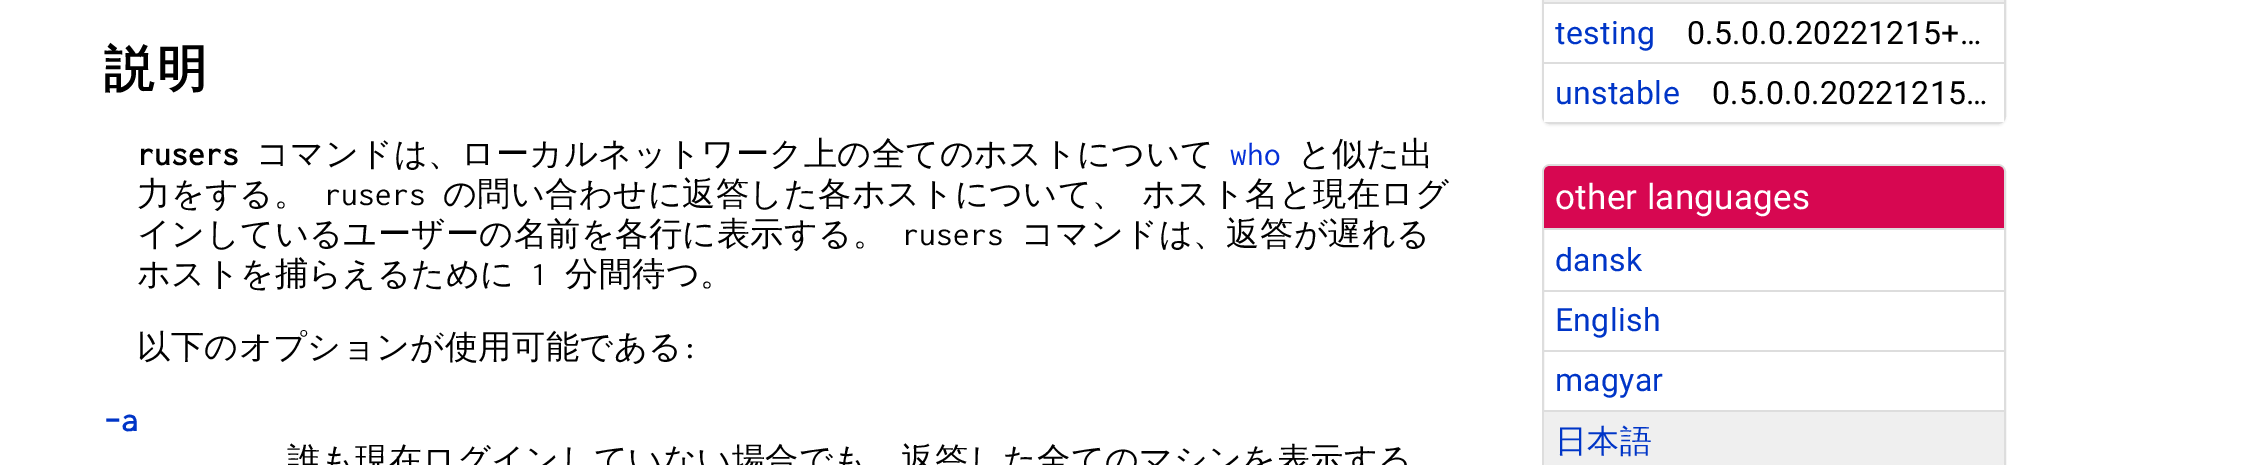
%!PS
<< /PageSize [2258 465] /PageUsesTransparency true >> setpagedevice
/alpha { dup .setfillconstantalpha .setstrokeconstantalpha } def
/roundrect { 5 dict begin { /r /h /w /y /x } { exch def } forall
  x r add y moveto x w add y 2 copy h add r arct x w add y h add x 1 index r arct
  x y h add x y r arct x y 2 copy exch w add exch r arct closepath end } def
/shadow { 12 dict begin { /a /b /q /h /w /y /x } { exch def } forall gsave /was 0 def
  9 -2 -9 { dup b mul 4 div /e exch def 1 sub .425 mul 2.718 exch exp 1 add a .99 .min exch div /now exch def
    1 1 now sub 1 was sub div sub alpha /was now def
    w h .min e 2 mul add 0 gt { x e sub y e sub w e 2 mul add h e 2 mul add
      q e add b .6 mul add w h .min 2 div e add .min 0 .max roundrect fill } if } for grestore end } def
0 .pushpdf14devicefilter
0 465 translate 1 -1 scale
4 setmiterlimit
1 setgray
0 0 2258 465 rectfill
/WenQuanYiZenHei-Bold [50 0 0 -50 0 0] selectfont
0 setgray
104 86 moveto 3 0 (説明) ashow
/Inconsolata-Bold [33.3 0 0 -33.3 0 0] selectfont
137 165 moveto 0.3 0 (rusers) ashow
/WenQuanYiZenHei-Medium [33.3 0 0 -33.3 0 0] selectfont
256 165 moveto 0.3 0 (コマンドは、ローカルネットワーク上の全てのホストについて) ashow
/Inconsolata-Regular [33.3 0 0 -33.3 0 0] selectfont
0.02 0.188 0.843 setrgbcolor
1230 165 moveto 0.3 0 (who) ashow
/WenQuanYiZenHei-Medium [33.3 0 0 -33.3 0 0] selectfont
0 setgray
1298 165 moveto 0.3 0 (と似た出) ashow
137 205 moveto 0.3 0 (力をする。) ashow
/Inconsolata-Regular [33.3 0 0 -33.3 0 0] selectfont
324 205 moveto 0.3 0 (rusers) ashow
/WenQuanYiZenHei-Medium [33.3 0 0 -33.3 0 0] selectfont
443 205 moveto 0.3 0 (の問い合わせに返答した各ホストについて、) ashow
1142 205 moveto 0.3 0 (ホスト名と現在ログ) ashow
137 245 moveto 0.3 0 (インしているユーザーの名前を各行に表示する。) ashow
/Inconsolata-Regular [33.3 0 0 -33.3 0 0] selectfont
902 245 moveto 0.3 0 (rusers) ashow
/WenQuanYiZenHei-Medium [33.3 0 0 -33.3 0 0] selectfont
1021 245 moveto 0.3 0 (コマンドは、返答が遅れる) ashow
137 285 moveto 0.3 0 (ホストを捕らえるために) ashow
/Inconsolata-Regular [33.3 0 0 -33.3 0 0] selectfont
531 285 moveto 0.3 0 (1) ashow
/WenQuanYiZenHei-Medium [33.3 0 0 -33.3 0 0] selectfont
565 285 moveto 0.3 0 (分間待つ。) ashow
137 358 moveto 0.3 0 (以下のオプションが使用可能である) ashow
/Inconsolata-Regular [33.3 0 0 -33.3 0 0] selectfont
682 358 moveto 0.3 0 (:) ashow
/Inconsolata-Bold [33.3 0 0 -33.3 0 0] selectfont
0 0.208 0.78 setrgbcolor
104 431 moveto 0.3 0 (-a) ashow
/WenQuanYiZenHei-Medium [33.3 0 0 -33.3 0 0] selectfont
0 setgray
287 471 moveto 0.3 0 (誰も現在ログインしていない場合でも、返答した全てのマシンを表示する) ashow
1542 -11 464 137 8 1 0.05 shadow
0.867 setgray
2 setlinewidth
1543 -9 462 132 7 roundrect stroke
1 setgray
1544 4 460 118 rectfill
0.937 setgray
1544 0 460 2 rectfill
0.867 setgray
1544 2 460 2 rectfill
1544 62 460 2 rectfill
/Roboto-Regular [32 0 0 -32 0 0] selectfont
0 0.208 0.78 setrgbcolor
1555 44 moveto 0.3 0 (testing) ashow
0 setgray
1687 44 moveto 0.3 0 (0.5.0.0.20221215+…) ashow
0 0.208 0.78 setrgbcolor
1555 104 moveto 0.3 0 (unstable) ashow
0 setgray
1712 104 moveto 0.3 0 (0.5.0.0.20221215…) ashow
0.867 setgray
1543 165 462 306 7 roundrect stroke
0.843 0.027 0.318 setrgbcolor
newpath 1550 166 moveto 1998 166 lineto 2001.5 166 2004 168.5 2004 172 curveto 2004 230 lineto 1544 230 lineto 1544 172 lineto 1544 168.5 1546.5 166 1550 166 curveto closepath fill
/Roboto-Regular [35 0 0 -35 0 0] selectfont
1 setgray
1555 209 moveto 0.3 0 (other languages) ashow
0.867 setgray
1544 228 460 2 rectfill
1544 290 460 2 rectfill
/Roboto-Regular [32 0 0 -32 0 0] selectfont
0 0.208 0.78 setrgbcolor
1555 271 moveto 0.3 0 (dansk) ashow
0.867 setgray
1544 350 460 2 rectfill
0 0.208 0.78 setrgbcolor
1555 331 moveto 0.3 0 (English) ashow
1555 391 moveto 0.3 0 (magyar) ashow
0.937 setgray
newpath 1544 410 moveto 2004 410 lineto 2004 462 lineto 2004 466.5 2000.5 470 1996 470 curveto 1552 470 lineto 1547.5 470 1544 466.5 1544 462 curveto closepath fill
0.867 setgray
1544 410 460 2 rectfill
/WenQuanYiZenHei-Medium [32 0 0 -32 0 0] selectfont
0 0.208 0.78 setrgbcolor
1555 452 moveto 0.3 0 (日本語) ashow
.poppdf14devicefilter showpage
